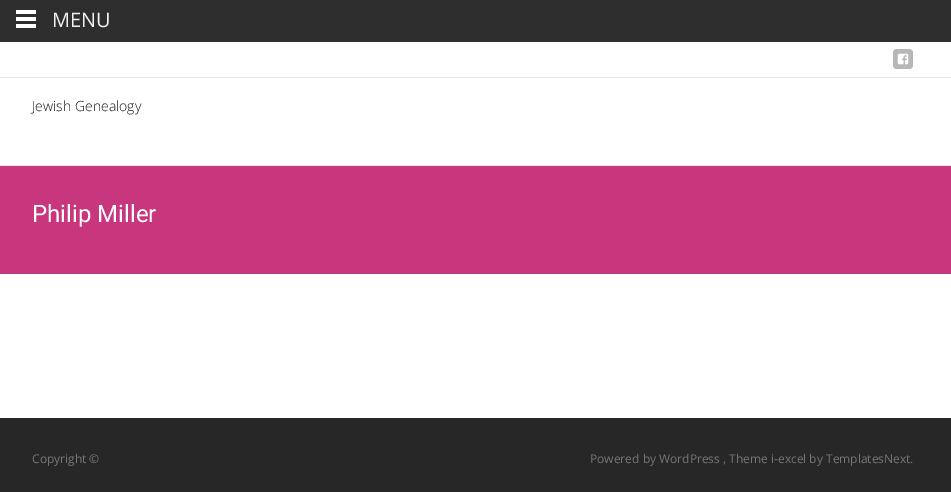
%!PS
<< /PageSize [951 492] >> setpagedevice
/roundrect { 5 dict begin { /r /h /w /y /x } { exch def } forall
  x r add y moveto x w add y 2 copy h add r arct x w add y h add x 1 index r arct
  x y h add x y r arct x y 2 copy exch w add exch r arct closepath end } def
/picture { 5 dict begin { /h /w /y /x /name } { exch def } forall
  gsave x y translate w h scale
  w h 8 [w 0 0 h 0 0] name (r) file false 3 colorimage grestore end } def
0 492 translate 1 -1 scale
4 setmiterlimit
1 setgray
0 0 951 492 rectfill
0.18 setgray
0 0 951 42 rectfill
1 setgray
16 10 20 4 rectfill
16 17 20 4 rectfill
16 24 20 4 rectfill
/OpenSans-Regular [20 0 0 -20 0 0] selectfont
0.949 setgray
52 27 moveto (MENU) show
0.906 setgray
0 77 951 1 rectfill
0.718 setgray
893 49 20 20 4 roundrect fill
(img1.rgb) 897 53 12 12 picture
0.906 setgray
0 165 951 1 rectfill
/OpenSans-Light [14 0 0 -14 0 0] selectfont
0.078 0.078 0.071 setrgbcolor
32 111 moveto (Jewish Genealogy) show
0.784 0.212 0.49 setrgbcolor
0 166 951 108 rectfill
/Roboto-Regular [24 0 0 -24 0 0] selectfont
1 setgray
32 222 moveto (Philip Miller) show
0.153 setgray
0 418 951 74 rectfill
/OpenSans-Regular [12 0 0 -12 0 0] selectfont
0.467 setgray
32 463 moveto (Copyright ©) show
590 463 moveto (Powered by WordPress , Theme i-excel by TemplatesNext.) show
showpage
